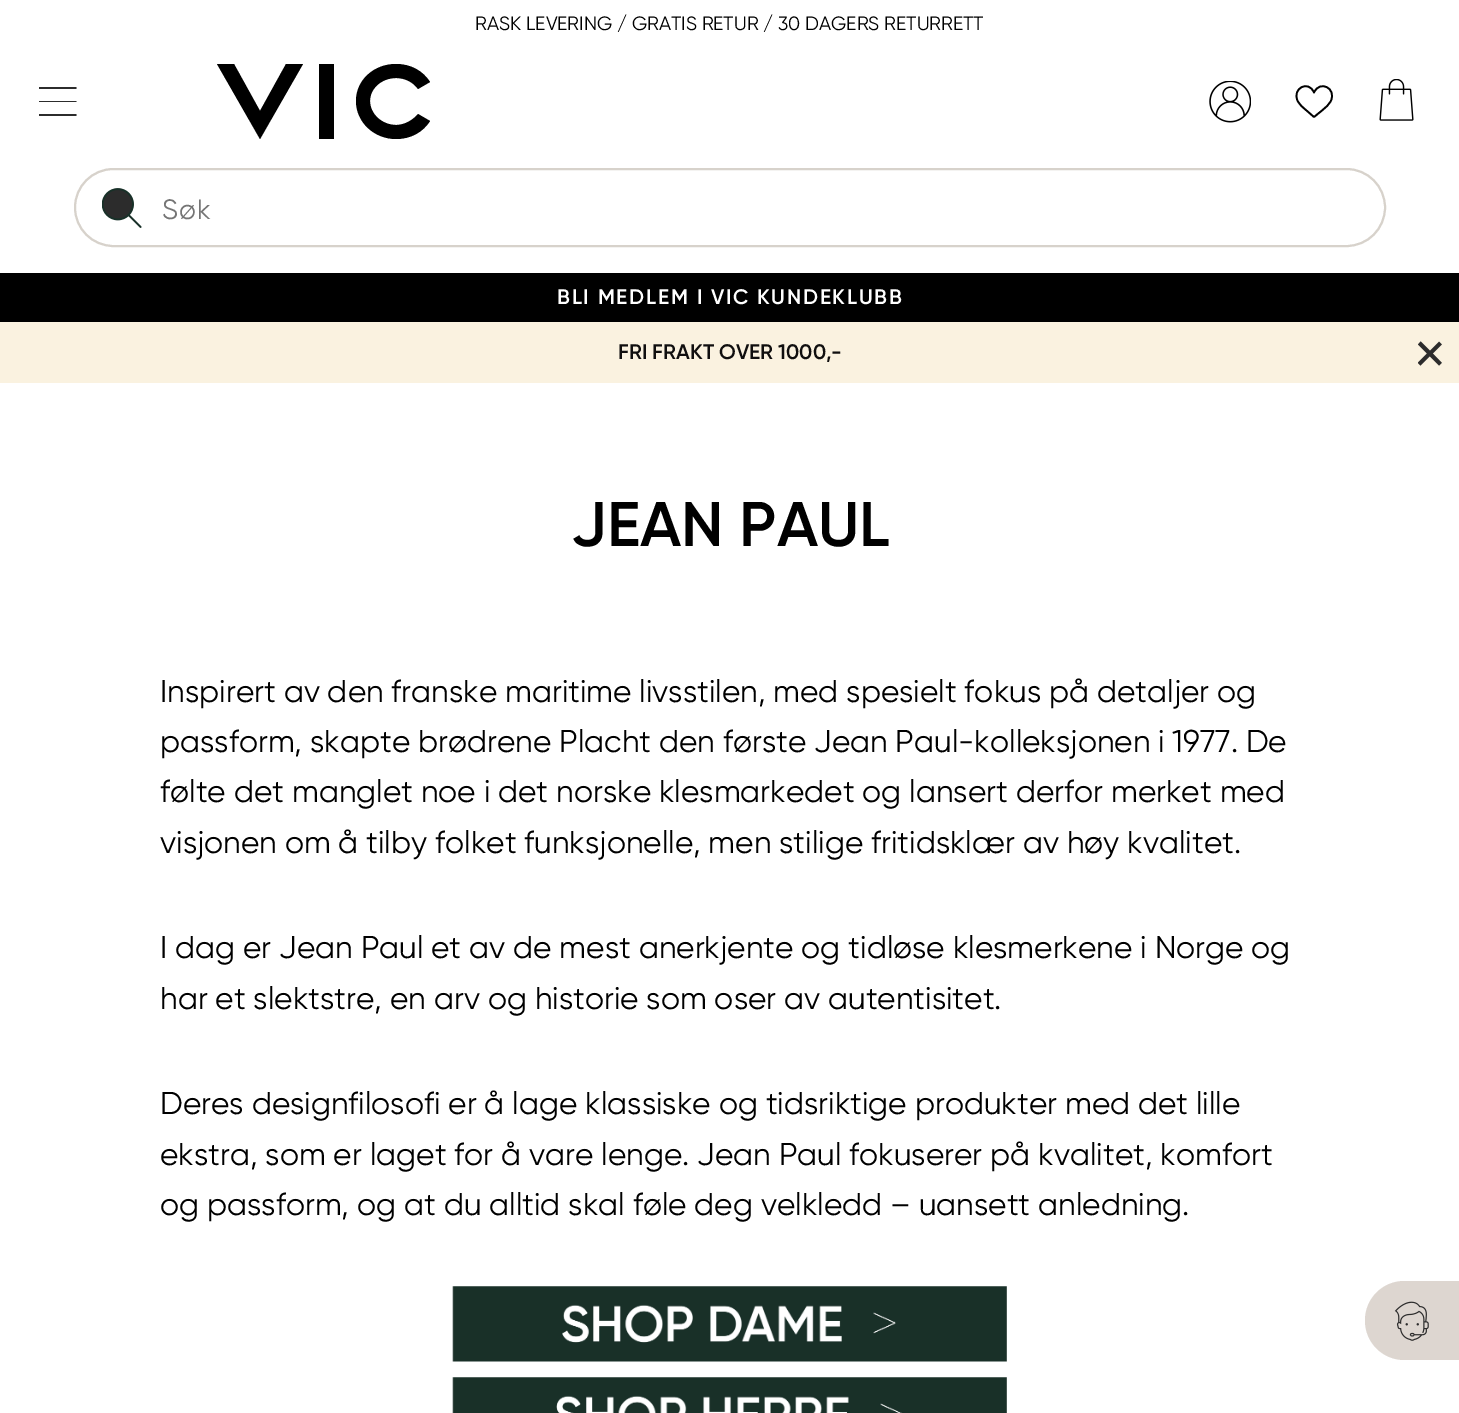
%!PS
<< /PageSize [1459 1413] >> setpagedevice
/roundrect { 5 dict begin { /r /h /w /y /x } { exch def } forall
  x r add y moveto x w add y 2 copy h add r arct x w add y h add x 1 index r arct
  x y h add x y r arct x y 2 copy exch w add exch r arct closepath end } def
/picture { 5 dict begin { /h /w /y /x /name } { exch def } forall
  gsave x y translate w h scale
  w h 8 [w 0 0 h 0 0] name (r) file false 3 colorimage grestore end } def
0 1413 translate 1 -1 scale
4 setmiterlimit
1 setgray
0 0 1459 1413 rectfill
/Gilroy-Regular [19.25 0 0 -19.25 0 0] selectfont
0 setgray
475 30 moveto (RASK LEVERING / GRATIS RETUR / 30 DAGERS RETURRETT) show
0.173 setgray
newpath 39 116 moveto 39 114 lineto 76.5 114 lineto 76.5 116 lineto closepath 39 102 moveto 39 101 lineto 76.5 101 lineto 76.5 102 lineto closepath 39 89 moveto 39 87 lineto 76.5 87 lineto 76.5 89 lineto closepath fill
0 setgray
newpath 303 64 moveto 286 64 lineto 260 111 lineto 234 64 lineto 217 64 lineto 260 139 lineto closepath fill
319 64 15 75 rectfill
newpath 396 125 moveto 382 125 370 114 370 101 curveto 370 88 382 78 396 78 curveto 405 78 413 82 418 89 curveto 430 82 lineto 423 71 411 64 396 64 curveto 374 64 356 80 356 101 curveto 356 122 374 139 396 139 curveto 411 139 423 132 430 121 curveto 418 114 lineto 413 120 405 125 396 125 curveto closepath fill
(img1.rgb) 1209 81 42 42 picture
1.7 setlinewidth
1 setlinecap
1 setlinejoin
newpath 1314 117 moveto 1306.5 110.5 lineto 1303 107.5 1299 104.5 1297.5 100.5 curveto 1292 88.5 1308.5 79.5 1314 92.5 curveto 1320 79.5 1336.5 88.5 1331 100.5 curveto 1329.5 104.5 1325.5 107.5 1322 110.5 curveto 1314 117 lineto stroke
(img2.rgb) 1379 79 35 42 picture
0.843 0.824 0.796 setrgbcolor
2 setlinewidth
0 setlinecap
0 setlinejoin
75 169 1310 77 38.5 roundrect stroke
(img3.rgb) 102 188 40 40 picture
/Gilroy-Regular [28 0 0 -28 0 0] selectfont
0.459 setgray
162 219 moveto 1 0 (Søk) ashow
0 setgray
0 273 1459 49 rectfill
/Gilroy-SemiBold [21 0 0 -21 0 0] selectfont
1 setgray
557 304 moveto 1.75 0 (BLI MEDLEM I VIC KUNDEKLUBB) ashow
0.98 0.949 0.878 setrgbcolor
0 322 1459 61 rectfill
0.063 0.059 0.059 setrgbcolor
618 359 moveto (FRI FRAKT OVER 1000,-) show
(img4.rgb) 1418 341 24 25 picture
/Gilroy-SemiBold [63 0 0 -63 0 0] selectfont
0 setgray
571 546 moveto (JEAN PAUL) show
/Gilroy-Regular [31.5 0 0 -31.5 0 0] selectfont
160 702 moveto (Inspirert av den franske maritime livsstilen, med spesielt fokus på detaljer og) show
160 752 moveto (passform, skapte brødrene Placht den første Jean Paul-kolleksjonen i 1977. De) show
160 802 moveto (følte det manglet noe i det norske klesmarkedet og lansert derfor merket med) show
160 853 moveto (visjonen om å tilby folket funksjonelle, men stilige fritidsklær av høy kvalitet.) show
160 958 moveto (I dag er Jean Paul et av de mest anerkjente og tidløse klesmerkene i Norge og) show
160 1009 moveto (har et slektstre, en arv og historie som oser av autentisitet.) show
160 1114 moveto (Deres designfilosofi er å lage klassiske og tidsriktige produkter med det lille) show
160 1165 moveto (ekstra, som er laget for å vare lenge. Jean Paul fokuserer på kvalitet, komfort) show
160 1215 moveto (og passform, og at du alltid skal føle deg velkledd – uansett anledning.) show
(img5.rgb) 452 1286 555 76 picture
(img6.rgb) 452 1377 555 36 picture
0.867 0.839 0.816 setrgbcolor
newpath 1404.5 1281 moveto 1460 1281 lineto 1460 1360 lineto 1404.5 1360 lineto 1382.5 1360 1365 1342.5 1365 1320.5 curveto 1365 1298.5 1382.5 1281 1404.5 1281 curveto closepath fill
(img7.rgb) 1394 1301 35 40 picture
showpage
